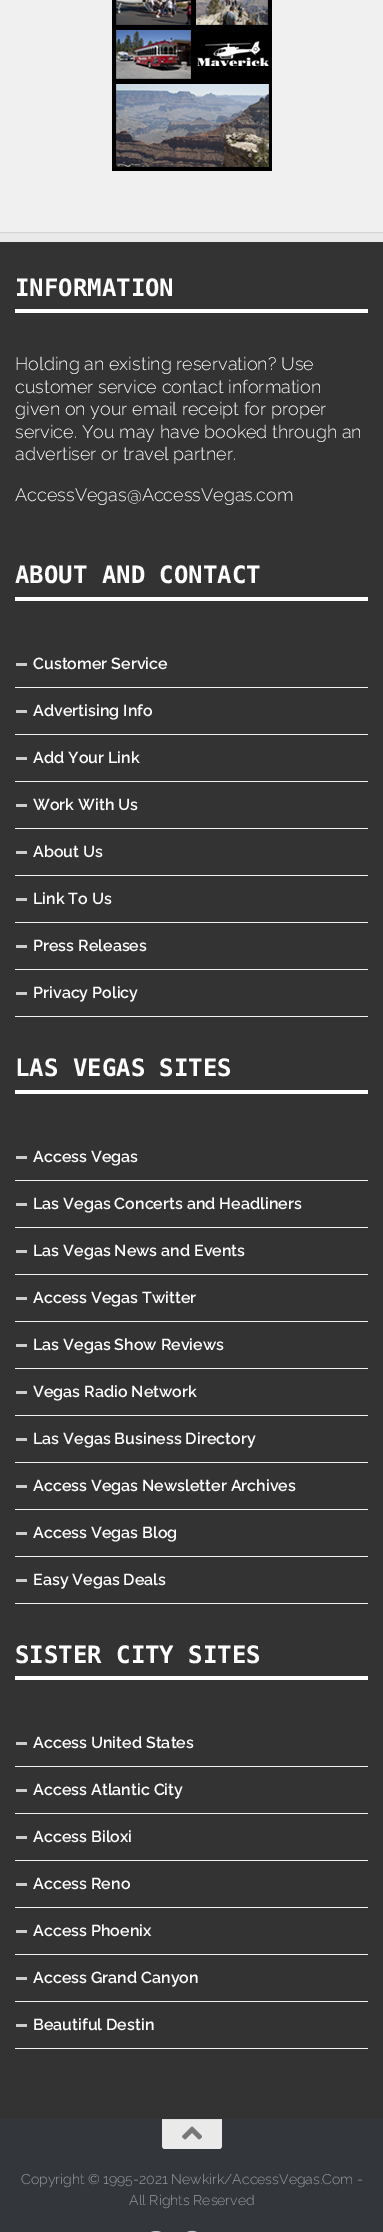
%!PS
<< /PageSize [383 2232] /PageUsesTransparency true >> setpagedevice
/alpha { dup .setfillconstantalpha .setstrokeconstantalpha } def
/roundrect { 5 dict begin { /r /h /w /y /x } { exch def } forall
  x r add y moveto x w add y 2 copy h add r arct x w add y h add x 1 index r arct
  x y h add x y r arct x y 2 copy exch w add exch r arct closepath end } def
/shadow { 12 dict begin { /a /b /q /h /w /y /x } { exch def } forall gsave /was 0 def
  9 -2 -9 { dup b mul 4 div /e exch def 1 sub .425 mul 2.718 exch exp 1 add a .99 .min exch div /now exch def
    1 1 now sub 1 was sub div sub alpha /was now def
    w h .min e 2 mul add 0 gt { x e sub y e sub w e 2 mul add h e 2 mul add
      q e add b .6 mul add w h .min 2 div e add .min 0 .max roundrect fill } if } for grestore end } def
/picture { 5 dict begin { /h /w /y /x /name } { exch def } forall
  gsave x y translate w h scale
  w h 8 [w 0 0 h 0 0] name (r) file false 3 colorimage grestore end } def
0 .pushpdf14devicefilter
0 2232 translate 1 -1 scale
4 setmiterlimit
0.918 setgray
0 0 383 2232 rectfill
0 setgray
0 -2 383 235 0 0.5 0.1 shadow
0.941 setgray
0 0 383 232 rectfill
(img1.rgb) 112 0 160 171 picture
0.2 setgray
0 242 383 1877 rectfill
1 setgray
15 309 353 4 rectfill
/DejaVuSansMono-Bold [24 0 0 -24 0 0] selectfont
15 296 moveto (INFORMATION) show
/Raleway-Light [18 0 0 -18 0 0] selectfont
15 370 moveto (Holding an existing reservation? Use) show
15 393 moveto (customer service contact information) show
15 415 moveto (given on your email receipt for proper) show
15 438 moveto (service. You may have booked through an) show
15 460 moveto (advertiser or travel partner.) show
15 501 moveto (AccessVegas@AccessVegas.com) show
15 597 353 4 rectfill
/DejaVuSansMono-Bold [24 0 0 -24 0 0] selectfont
15 583 moveto (ABOUT AND CONTACT) show
0.949 setgray
15 687 353 1 rectfill
0.8 setgray
16 663 11 3 rectfill
/Raleway-SemiBold [16 0 0 -16 0 0] selectfont
1 setgray
33 669 moveto (Customer Service) show
0.949 setgray
15 734 353 1 rectfill
0.8 setgray
16 710 11 3 rectfill
1 setgray
33 716 moveto (Advertising Info) show
0.949 setgray
15 781 353 1 rectfill
0.8 setgray
16 757 11 3 rectfill
1 setgray
33 763 moveto (Add Your Link) show
0.949 setgray
15 828 353 1 rectfill
0.8 setgray
16 804 11 3 rectfill
1 setgray
33 810 moveto (Work With Us) show
0.949 setgray
15 875 353 1 rectfill
0.8 setgray
16 851 11 3 rectfill
1 setgray
33 857 moveto (About Us) show
0.949 setgray
15 922 353 1 rectfill
0.8 setgray
16 898 11 3 rectfill
1 setgray
33 904 moveto (Link To Us) show
0.949 setgray
15 969 353 1 rectfill
0.8 setgray
16 945 11 3 rectfill
1 setgray
33 951 moveto (Press Releases) show
0.949 setgray
15 1016 353 1 rectfill
0.8 setgray
16 992 11 3 rectfill
1 setgray
33 998 moveto (Privacy Policy) show
15 1090 353 4 rectfill
/DejaVuSansMono-Bold [24 0 0 -24 0 0] selectfont
15 1076 moveto (LAS VEGAS SITES) show
0.949 setgray
15 1180 353 1 rectfill
0.8 setgray
16 1156 11 3 rectfill
/Raleway-SemiBold [16 0 0 -16 0 0] selectfont
1 setgray
33 1162 moveto (Access Vegas) show
0.949 setgray
15 1227 353 1 rectfill
0.8 setgray
16 1203 11 3 rectfill
1 setgray
33 1209 moveto (Las Vegas Concerts and Headliners) show
0.949 setgray
15 1274 353 1 rectfill
0.8 setgray
16 1250 11 3 rectfill
1 setgray
33 1256 moveto (Las Vegas News and Events) show
0.949 setgray
15 1321 353 1 rectfill
0.8 setgray
16 1297 11 3 rectfill
1 setgray
33 1303 moveto (Access Vegas Twitter) show
0.949 setgray
15 1368 353 1 rectfill
0.8 setgray
16 1344 11 3 rectfill
1 setgray
33 1350 moveto (Las Vegas Show Reviews) show
0.949 setgray
15 1415 353 1 rectfill
0.8 setgray
16 1391 11 3 rectfill
1 setgray
33 1397 moveto (Vegas Radio Network) show
0.949 setgray
15 1462 353 1 rectfill
0.8 setgray
16 1438 11 3 rectfill
1 setgray
33 1444 moveto (Las Vegas Business Directory) show
0.949 setgray
15 1509 353 1 rectfill
0.8 setgray
16 1485 11 3 rectfill
1 setgray
33 1491 moveto (Access Vegas Newsletter Archives) show
0.949 setgray
15 1556 353 1 rectfill
0.8 setgray
16 1532 11 3 rectfill
1 setgray
33 1538 moveto (Access Vegas Blog) show
0.949 setgray
15 1603 353 1 rectfill
0.8 setgray
16 1579 11 3 rectfill
1 setgray
33 1585 moveto (Easy Vegas Deals) show
15 1676 353 4 rectfill
/DejaVuSansMono-Bold [24 0 0 -24 0 0] selectfont
15 1663 moveto (SISTER CITY SITES) show
0.949 setgray
15 1766 353 1 rectfill
0.8 setgray
16 1742 11 3 rectfill
/Raleway-SemiBold [16 0 0 -16 0 0] selectfont
1 setgray
33 1748 moveto (Access United States) show
0.949 setgray
15 1813 353 1 rectfill
0.8 setgray
16 1789 11 3 rectfill
1 setgray
33 1795 moveto (Access Atlantic City) show
0.949 setgray
15 1860 353 1 rectfill
0.8 setgray
16 1836 11 3 rectfill
1 setgray
33 1842 moveto (Access Biloxi) show
0.949 setgray
15 1907 353 1 rectfill
0.8 setgray
16 1883 11 3 rectfill
1 setgray
33 1889 moveto (Access Reno) show
0.949 setgray
15 1954 353 1 rectfill
0.8 setgray
16 1930 11 3 rectfill
1 setgray
33 1936 moveto (Access Phoenix) show
0.949 setgray
15 2001 353 1 rectfill
0.8 setgray
16 1977 11 3 rectfill
1 setgray
33 1983 moveto (Access Grand Canyon) show
0.949 setgray
15 2048 353 1 rectfill
0.8 setgray
16 2024 11 3 rectfill
1 setgray
33 2030 moveto (Beautiful Destin) show
0.2 0.212 0.231 setrgbcolor
0 2119 383 113 rectfill
0.918 setgray
newpath 162 2119 moveto 222 2119 lineto 222 2146 lineto 222 2147.5 220.5 2149 219 2149 curveto 165 2149 lineto 163.5 2149 162 2147.5 162 2146 curveto closepath fill
0.871 setgray
162 2119 60 1 rectfill
(img2.rgb) 182 2126 20 14 picture
/Raleway-Light [14.1 0 0 -14.1 0 0] selectfont
0.6 0.608 0.616 setrgbcolor
21 2184 moveto (Copyright © 1995-2021 Newkirk/AccessVegas.Com -) show
129 2205 moveto (All Rights Reserved) show
(img3.rgb) 151 2231 10 1 picture
(img4.rgb) 187 2230 10 2 picture
.poppdf14devicefilter showpage
